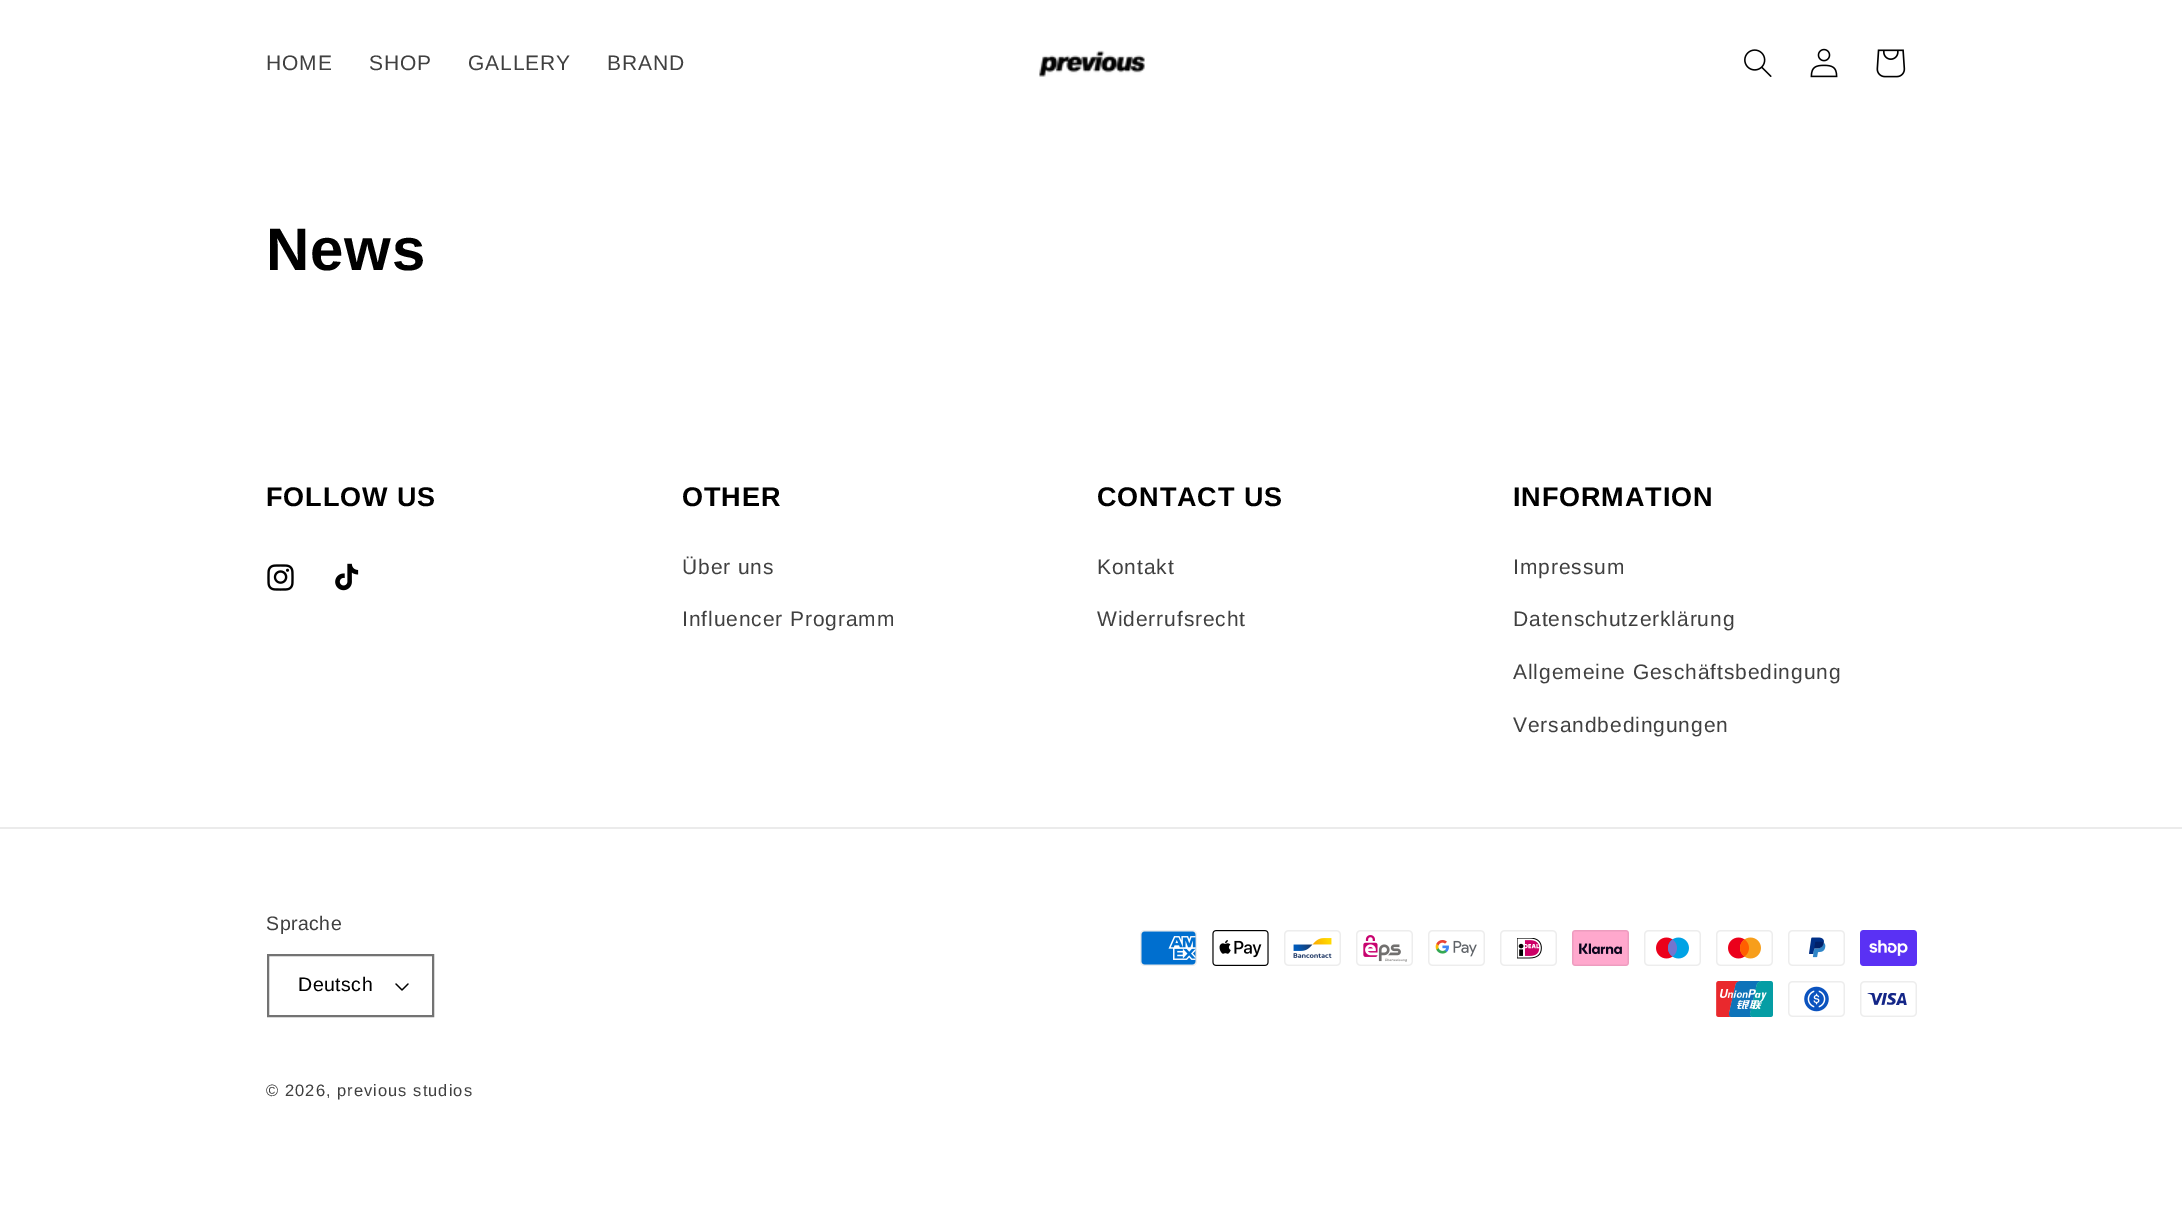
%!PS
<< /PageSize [2182 1211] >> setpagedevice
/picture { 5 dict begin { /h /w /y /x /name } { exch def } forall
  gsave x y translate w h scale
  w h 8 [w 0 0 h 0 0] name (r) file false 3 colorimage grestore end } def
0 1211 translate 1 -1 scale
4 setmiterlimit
1 setgray
0 0 2182 1211 rectfill
/LiberationSans-Regular [21 0 0 -21 0 0] selectfont
0.251 setgray
266 70 moveto 0.9 0 (HOME) ashow
369 70 moveto 0.9 0 (SHOP) ashow
468 70 moveto 0.9 0 (GALLERY) ashow
607 70 moveto 0.9 0 (BRAND) ashow
(img1.rgb) 1039 50 106 27 picture
(img2.rgb) 1744 49 28 28 picture
(img3.rgb) 1810 48 28 30 picture
(img4.rgb) 1876 49 30 29 picture
/LiberationSans-Bold [60 0 0 -60 0 0] selectfont
0 setgray
266 270 moveto 0.9 0 (News) ashow
/LiberationSans-Bold [27 0 0 -27 0 0] selectfont
266 506 moveto 0.9 0 (FOLLOW US) ashow
(img5.rgb) 267 564 27 27 picture
(img6.rgb) 335 563 24 28 picture
682 506 moveto 0.9 0 (OTHER) ashow
/LiberationSans-Regular [21 0 0 -21 0 0] selectfont
0.251 setgray
682 574 moveto 0.9 0 (Über uns) ashow
682 626 moveto 0.9 0 (Influencer Programm) ashow
/LiberationSans-Bold [27 0 0 -27 0 0] selectfont
0 setgray
1097 506 moveto 0.9 0 (CONTACT US) ashow
/LiberationSans-Regular [21 0 0 -21 0 0] selectfont
0.251 setgray
1097 574 moveto 0.9 0 (Kontakt) ashow
1097 626 moveto 0.9 0 (Widerrufsrecht) ashow
/LiberationSans-Bold [27 0 0 -27 0 0] selectfont
0 setgray
1513 506 moveto 0.9 0 (INFORMATION) ashow
/LiberationSans-Regular [21 0 0 -21 0 0] selectfont
0.251 setgray
1513 574 moveto 0.9 0 (Impressum) ashow
1513 626 moveto 0.9 0 (Datenschutzerklärung) ashow
1513 679 moveto 0.9 0 (Allgemeine Geschäftsbedingung) ashow
1513 732 moveto 0.9 0 (Versandbedingungen) ashow
0.922 setgray
0 827 2182 2 rectfill
/LiberationSans-Regular [19.5 0 0 -19.5 0 0] selectfont
0.251 setgray
266 930 moveto 0.5 0 (Sprache) ashow
(img7.rgb) 395 983 14 8 picture
0.451 setgray
2 setlinewidth
268 955 165 61 rectstroke
0 setgray
298 991 moveto 0.5 0 (Deutsch) ashow
(img8.rgb) 1140 930 57 36 picture
(img9.rgb) 1212 930 57 36 picture
(img10.rgb) 1284 930 57 36 picture
(img11.rgb) 1356 930 57 36 picture
(img12.rgb) 1428 930 57 36 picture
(img13.rgb) 1500 930 57 36 picture
(img14.rgb) 1572 930 57 36 picture
(img15.rgb) 1644 930 57 36 picture
(img16.rgb) 1716 930 57 36 picture
(img17.rgb) 1788 930 57 36 picture
(img18.rgb) 1860 930 57 36 picture
(img19.rgb) 1716 981 57 36 picture
(img20.rgb) 1788 981 57 36 picture
(img21.rgb) 1860 981 57 36 picture
/LiberationSans-Regular [16.5 0 0 -16.5 0 0] selectfont
0.251 setgray
266 1096 moveto 1.05 0 (© 2026, previous studios) ashow
showpage
